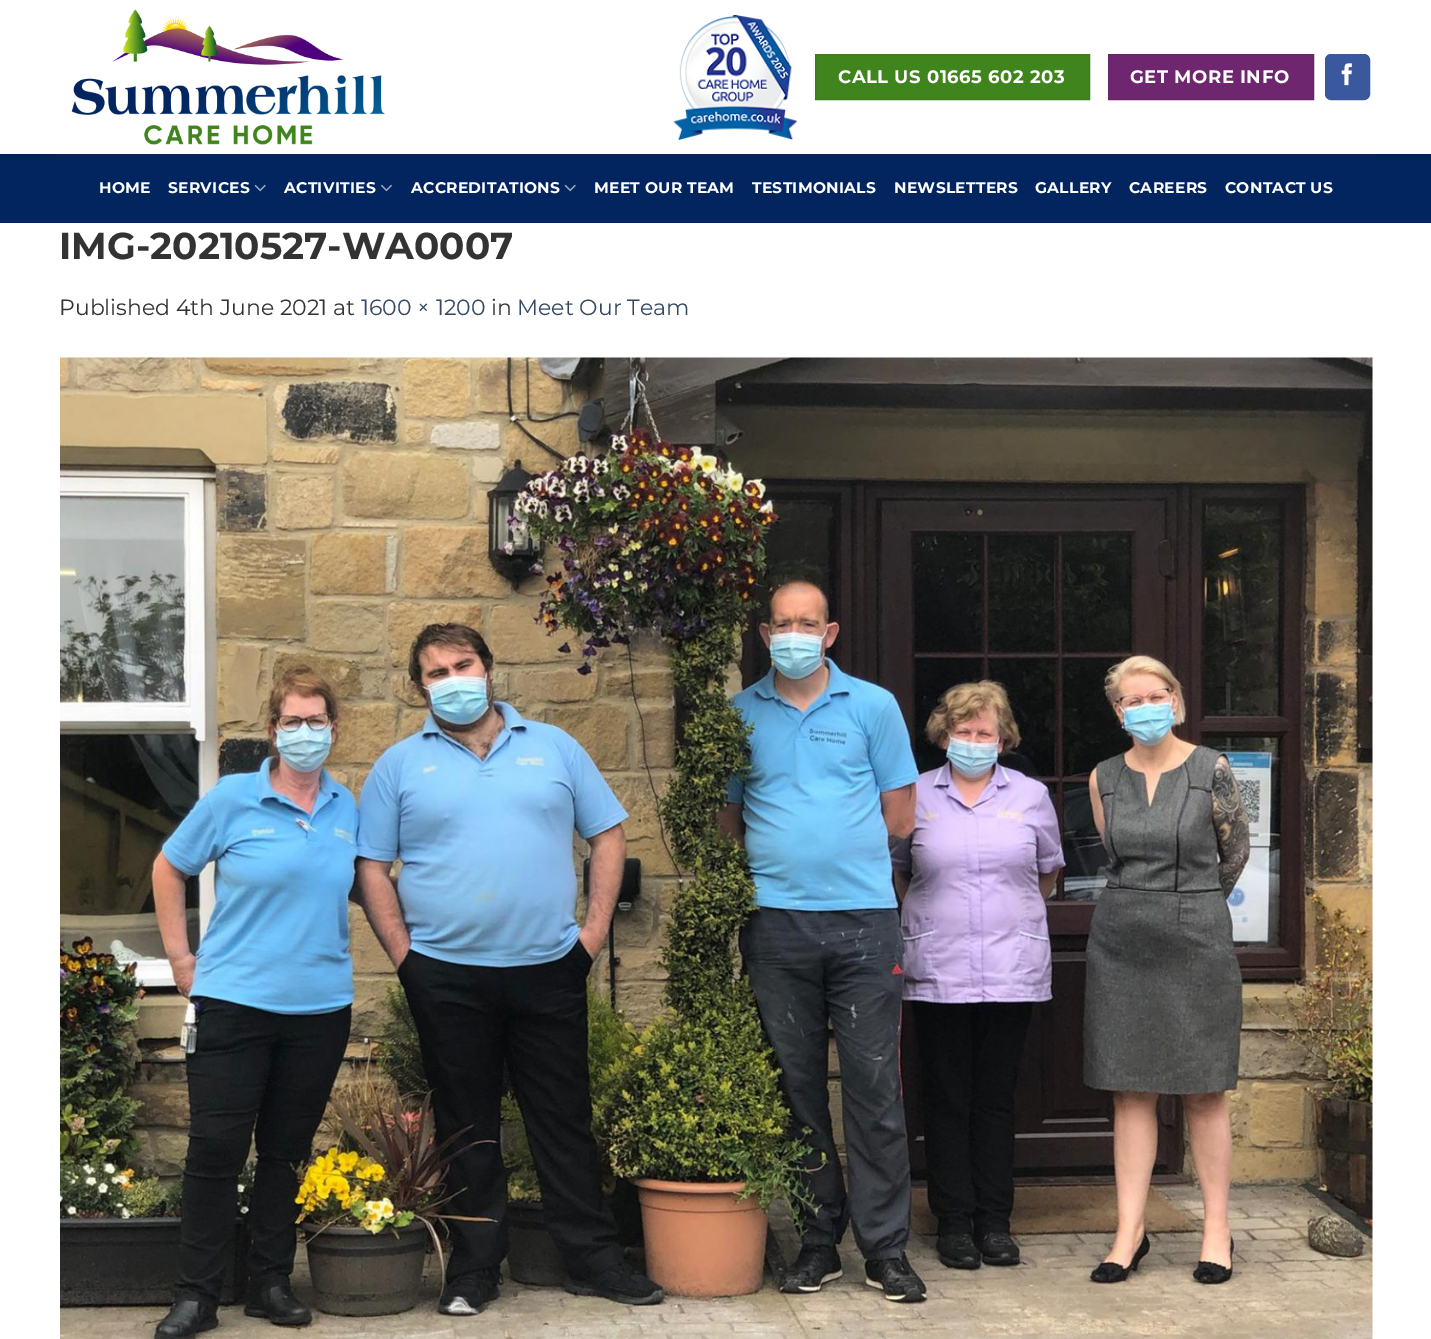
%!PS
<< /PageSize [1431 1339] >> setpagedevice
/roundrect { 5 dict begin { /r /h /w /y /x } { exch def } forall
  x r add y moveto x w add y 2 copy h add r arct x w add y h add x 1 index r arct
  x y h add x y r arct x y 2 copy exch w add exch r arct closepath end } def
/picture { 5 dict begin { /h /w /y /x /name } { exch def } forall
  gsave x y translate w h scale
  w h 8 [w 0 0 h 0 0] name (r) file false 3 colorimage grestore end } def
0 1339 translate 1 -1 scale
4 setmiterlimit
1 setgray
0 0 1431 1339 rectfill
(img1.rgb) 71 9 314 136 picture
(img2.rgb) 673 15 124 125 picture
0.247 0.518 0.11 setrgbcolor
newpath 815.5 54.5 moveto 1089.5 54.5 lineto 1089.5 99.5 lineto 815.5 99.5 lineto closepath gsave fill grestore
0.235 0.49 0.106 setrgbcolor
stroke
/Montserrat-Bold [18.1 0 0 -18.1 0 0] selectfont
1 setgray
838 83 moveto 0.5 0 (CALL US 01665 602 203) ashow
0.431 0.149 0.435 setrgbcolor
newpath 1108.5 54.5 moveto 1313.5 54.5 lineto 1313.5 99.5 lineto 1108.5 99.5 lineto closepath gsave fill grestore
0.412 0.141 0.412 setrgbcolor
stroke
1 setgray
1130 83 moveto 0.5 0 (GET MORE INFO) ashow
0.227 0.345 0.616 setrgbcolor
1325.5 54.5 44 45 5.5 roundrect gsave fill grestore
stroke
(img3.rgb) 1341 63 11 23 picture
0.008 0.145 0.373 setrgbcolor
0 154 1431 69 rectfill
0.027 0.149 0.357 setrgbcolor
60 154 1313 1 rectfill
/Montserrat-Bold [15.5 0 0 -15.5 0 0] selectfont
1 setgray
99 193 moveto 0.25 0 (HOME) ashow
168 193 moveto 0.25 0 (SERVICES) ashow
(img4.rgb) 254 184 12 8 picture
284 193 moveto 0.25 0 (ACTIVITIES) ashow
(img5.rgb) 380 184 12 8 picture
411 193 moveto 0.25 0 (ACCREDITATIONS) ashow
(img4.rgb) 564 184 12 8 picture
594 193 moveto 0.25 0 (MEET OUR TEAM) ashow
752 193 moveto 0.25 0 (TESTIMONIALS) ashow
894 193 moveto 0.25 0 (NEWSLETTERS) ashow
1035 193 moveto 0.25 0 (GALLERY) ashow
1129 193 moveto 0.25 0 (CAREERS) ashow
1225 193 moveto 0.25 0 (CONTACT US) ashow
/Montserrat-Bold [37.4 0 0 -37.4 0 0] selectfont
0.2 setgray
59 259 moveto (IMG-20210527-WA0007) show
/Montserrat-Regular [22 0 0 -22 0 0] selectfont
59 315 moveto (Published 4th June 2021 at) show
0.2 0.282 0.384 setrgbcolor
361 315 moveto (1600 × 1200) show
0.2 setgray
491 315 moveto (in) show
0.2 0.282 0.384 setrgbcolor
517 315 moveto (Meet Our Team) show
(img6.rgb) 60 357 1313 982 picture
showpage
